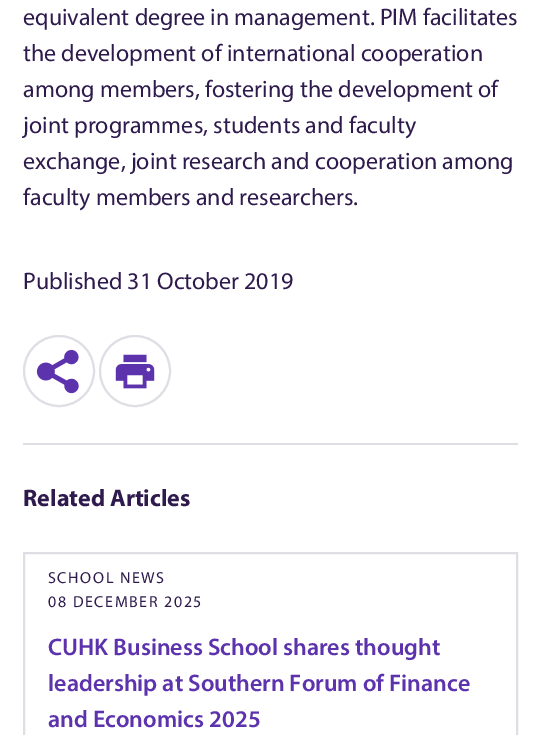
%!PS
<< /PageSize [539 735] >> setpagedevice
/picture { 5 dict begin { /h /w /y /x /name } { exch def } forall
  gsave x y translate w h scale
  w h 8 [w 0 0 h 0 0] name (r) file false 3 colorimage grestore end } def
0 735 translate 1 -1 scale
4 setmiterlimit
1 setgray
0 0 539 735 rectfill
/Myriad-Regular [24 0 0 -24 0 0] selectfont
0.18 0.102 0.298 setrgbcolor
23 25 moveto (equivalent degree in management. PIM facilitates) show
23 61 moveto (the development of international cooperation) show
23 97 moveto (among members, fostering the development of) show
23 133 moveto (joint programmes, students and faculty) show
23 169 moveto (exchange, joint research and cooperation among) show
23 205 moveto (faculty members and researchers.) show
23 289 moveto (Published 31 October 2019) show
0.878 0.867 0.894 setrgbcolor
2 setlinewidth
newpath 59 371 35 0 360 arc closepath stroke
(img1.rgb) 36 349 43 45 picture
newpath 135 371 35 0 360 arc closepath stroke
(img2.rgb) 115 354 40 35 picture
23 443 495 2 rectfill
/Myriad-Bold [24 0 0 -24 0 0] selectfont
0.18 0.102 0.298 setrgbcolor
23 506 moveto (Related Articles) show
0.878 0.867 0.894 setrgbcolor
24 553 493 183 rectstroke
/Myriad-Regular [16 0 0 -16 0 0] selectfont
0.18 0.102 0.298 setrgbcolor
48 583 moveto 1.6 0 (SCHOOL NEWS) ashow
48 607 moveto 1.6 0 (08 DECEMBER 2025) ashow
/Myriad-SemiBold [24 0 0 -24 0 0] selectfont
0.361 0.2 0.678 setrgbcolor
48 655 moveto (CUHK Business School shares thought) show
48 691 moveto (leadership at Southern Forum of Finance) show
48 727 moveto (and Economics 2025) show
showpage
